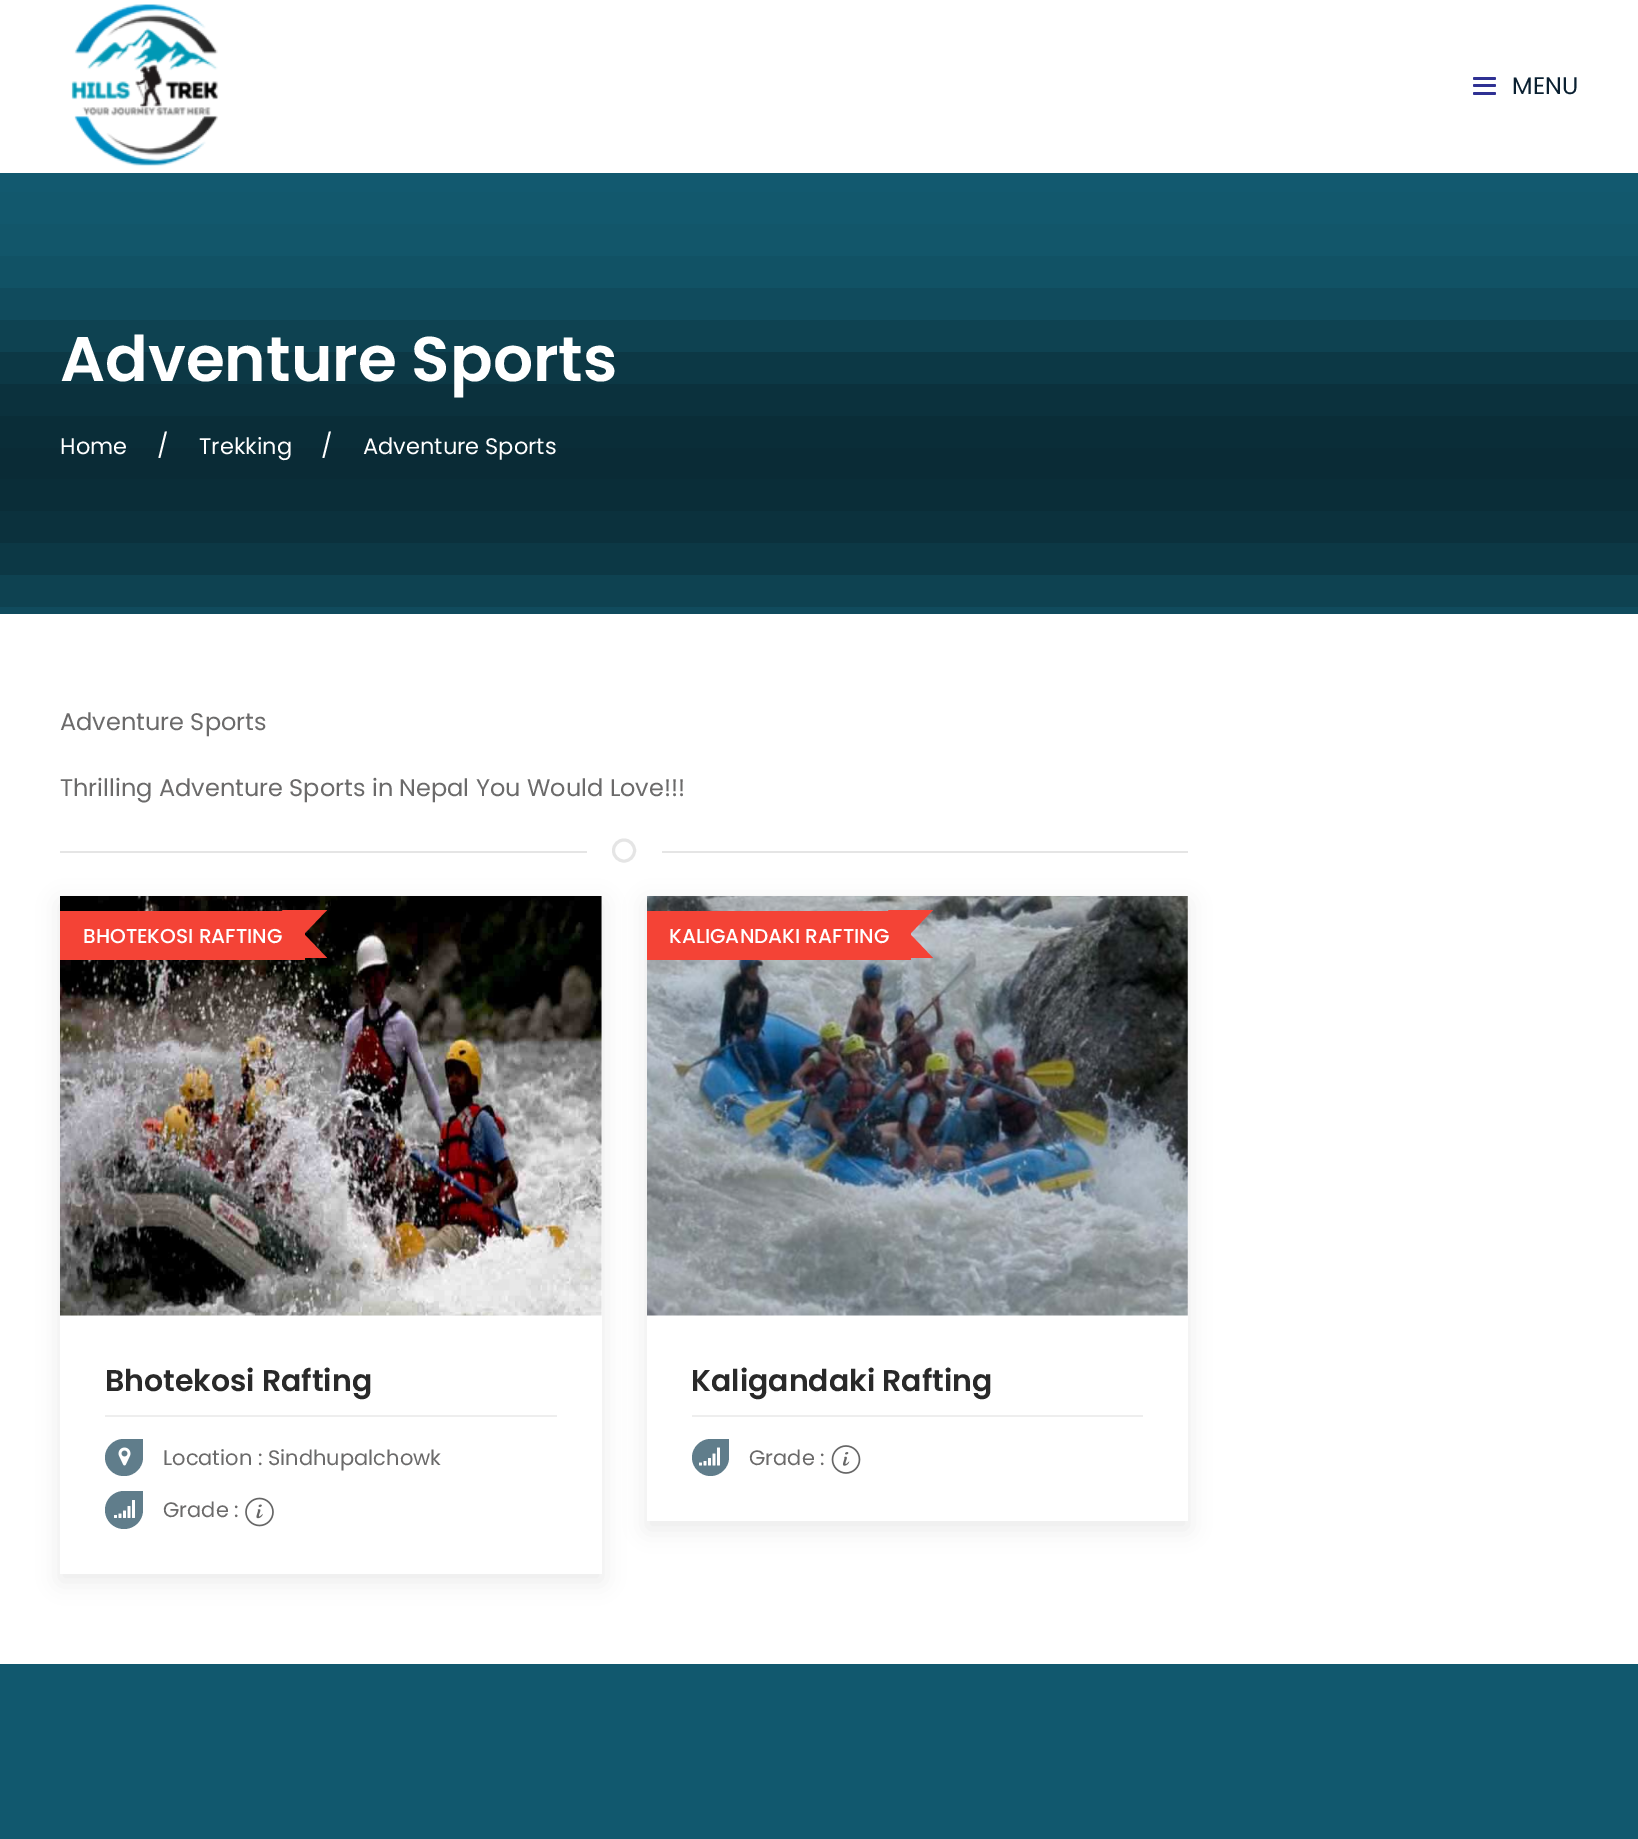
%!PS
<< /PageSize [1638 1839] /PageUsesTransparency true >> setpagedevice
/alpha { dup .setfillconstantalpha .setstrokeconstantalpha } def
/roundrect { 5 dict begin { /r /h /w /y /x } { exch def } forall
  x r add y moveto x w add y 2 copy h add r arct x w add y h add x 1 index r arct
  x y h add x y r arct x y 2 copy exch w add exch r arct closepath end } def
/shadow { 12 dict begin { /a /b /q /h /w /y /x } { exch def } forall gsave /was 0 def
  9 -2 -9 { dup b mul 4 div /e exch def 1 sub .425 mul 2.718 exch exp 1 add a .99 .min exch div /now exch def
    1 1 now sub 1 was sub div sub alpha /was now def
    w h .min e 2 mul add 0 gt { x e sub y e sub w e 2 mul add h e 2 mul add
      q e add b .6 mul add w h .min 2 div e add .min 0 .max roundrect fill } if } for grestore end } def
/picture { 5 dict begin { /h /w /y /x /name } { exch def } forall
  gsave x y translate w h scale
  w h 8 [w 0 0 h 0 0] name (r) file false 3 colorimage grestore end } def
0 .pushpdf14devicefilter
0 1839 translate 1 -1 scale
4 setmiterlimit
1 setgray
0 0 1638 1839 rectfill
0.071 0.349 0.435 setrgbcolor
0 173 1638 441 rectfill
gsave
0 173 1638 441 rectclip
0 setgray
-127 336 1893 255 0 64 0.53 shadow
grestore
(img1.rgb) 71 4 148 162 picture
0.184 0.192 0.576 setrgbcolor
1473 77 23 3 1.5 roundrect fill
1473 84 23 3 1.5 roundrect fill
1473 92 23 3 1.5 roundrect fill
/Poppins-Regular [24 0 0 -24 0 0] selectfont
0.039 0.125 0.192 setrgbcolor
1512 94 moveto (MENU) show
/Poppins-SemiBold [63 0 0 -63 0 0] selectfont
1 setgray
60 381 moveto (Adventure Sports) show
/Poppins-Regular [22.5 0 0 -22.5 0 0] selectfont
60 454 moveto (Home) show
/Poppins-Regular [24 0 0 -24 0 0] selectfont
157 454 moveto (/) show
/Poppins-Regular [22.5 0 0 -22.5 0 0] selectfont
199 454 moveto (Trekking) show
/Poppins-Regular [24 0 0 -24 0 0] selectfont
321 454 moveto (/) show
/Poppins-Regular [22.5 0 0 -22.5 0 0] selectfont
363 454 moveto (Adventure Sports) show
/Poppins-Regular [24 0 0 -24 0 0] selectfont
0.42 0.416 0.416 setrgbcolor
60 730 moveto (Adventure Sports) show
60 796 moveto (Thrilling Adventure Sports in Nepal You Would Love!!!) show
0.898 setgray
3 setlinewidth
newpath 624 850.5 10.5 0 360 arc closepath stroke
60 851 527 2 rectfill
662 851 526 2 rectfill
0 setgray
60 903 542 678 0 11 0.08 shadow
1 setgray
60 896 542 678 rectfill
(img2.rgb) 60 896 542 420 picture
0.957 0.263 0.212 setrgbcolor
60 911 245 49 rectfill
/Poppins-Medium [20.1 0 0 -20.1 0 0] selectfont
1 setgray
83 943 moveto (BHOTEKOSI RAFTING) show
0.957 0.263 0.212 setrgbcolor
newpath 282 910 moveto 327 910 lineto 304 934 lineto closepath 327 958 moveto 282 958 lineto 304 934 lineto closepath fill
0.933 setgray
105 1415 452 2 rectfill
/Poppins-SemiBold [30 0 0 -30 0 0] selectfont
0.161 setgray
105 1391 moveto (Bhotekosi Rafting) show
0.376 0.49 0.545 setrgbcolor
newpath 123.5 1439 moveto 143 1439 lineto 143 1457.5 lineto 143 1467.5 134.5 1476 124.5 1476 curveto 123.5 1476 lineto 113.5 1476 105 1467.5 105 1457.5 curveto 105 1447.5 113.5 1439 123.5 1439 curveto closepath fill
(img3.rgb) 118 1447 13 19 picture
/Poppins-Regular [21 0 0 -21 0 0] selectfont
0.42 0.416 0.416 setrgbcolor
163 1465 moveto (Location : Sindhupalchowk) show
0.376 0.49 0.545 setrgbcolor
newpath 124 1491 moveto 143 1491 lineto 143 1510 lineto 143 1520.5 134.5 1529 124 1529 curveto 113.5 1529 105 1520.5 105 1510 curveto 105 1499.5 113.5 1491 124 1491 curveto closepath fill
(img4.rgb) 114 1500 21 18 picture
0.42 0.416 0.416 setrgbcolor
163 1517 moveto (Grade :) show
(img5.rgb) 245 1497 29 30 picture
gsave
newpath 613 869 moveto 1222 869 lineto 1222 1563 lineto 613 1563 lineto closepath 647 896 moveto 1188 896 lineto 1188 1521 lineto 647 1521 lineto closepath eoclip newpath
0 setgray
647 903 541 626 0 11 0.08 shadow
grestore
(img6.rgb) 647 896 541 420 picture
0.957 0.263 0.212 setrgbcolor
647 911 264 49 rectfill
newpath 888 910 moveto 933 910 lineto 910 934 lineto closepath 933 958 moveto 888 958 lineto 910 934 lineto closepath fill
/Poppins-Medium [20.1 0 0 -20.1 0 0] selectfont
1 setgray
669 943 moveto (KALIGANDAKI RAFTING) show
0.933 setgray
692 1415 451 2 rectfill
/Poppins-SemiBold [30 0 0 -30 0 0] selectfont
0.161 setgray
691 1391 moveto (Kaligandaki Rafting) show
0.376 0.49 0.545 setrgbcolor
newpath 710.5 1439 moveto 729 1439 lineto 729 1457.5 lineto 729 1467.5 720.5 1476 710.5 1476 curveto 700.5 1476 692 1467.5 692 1457.5 curveto 692 1447.5 700.5 1439 710.5 1439 curveto closepath fill
(img7.rgb) 699 1447 21 19 picture
/Poppins-Regular [21 0 0 -21 0 0] selectfont
0.42 0.416 0.416 setrgbcolor
749 1465 moveto (Grade :) show
(img8.rgb) 831 1445 30 29 picture
0.067 0.345 0.431 setrgbcolor
0 1664 1638 175 rectfill
.poppdf14devicefilter showpage
